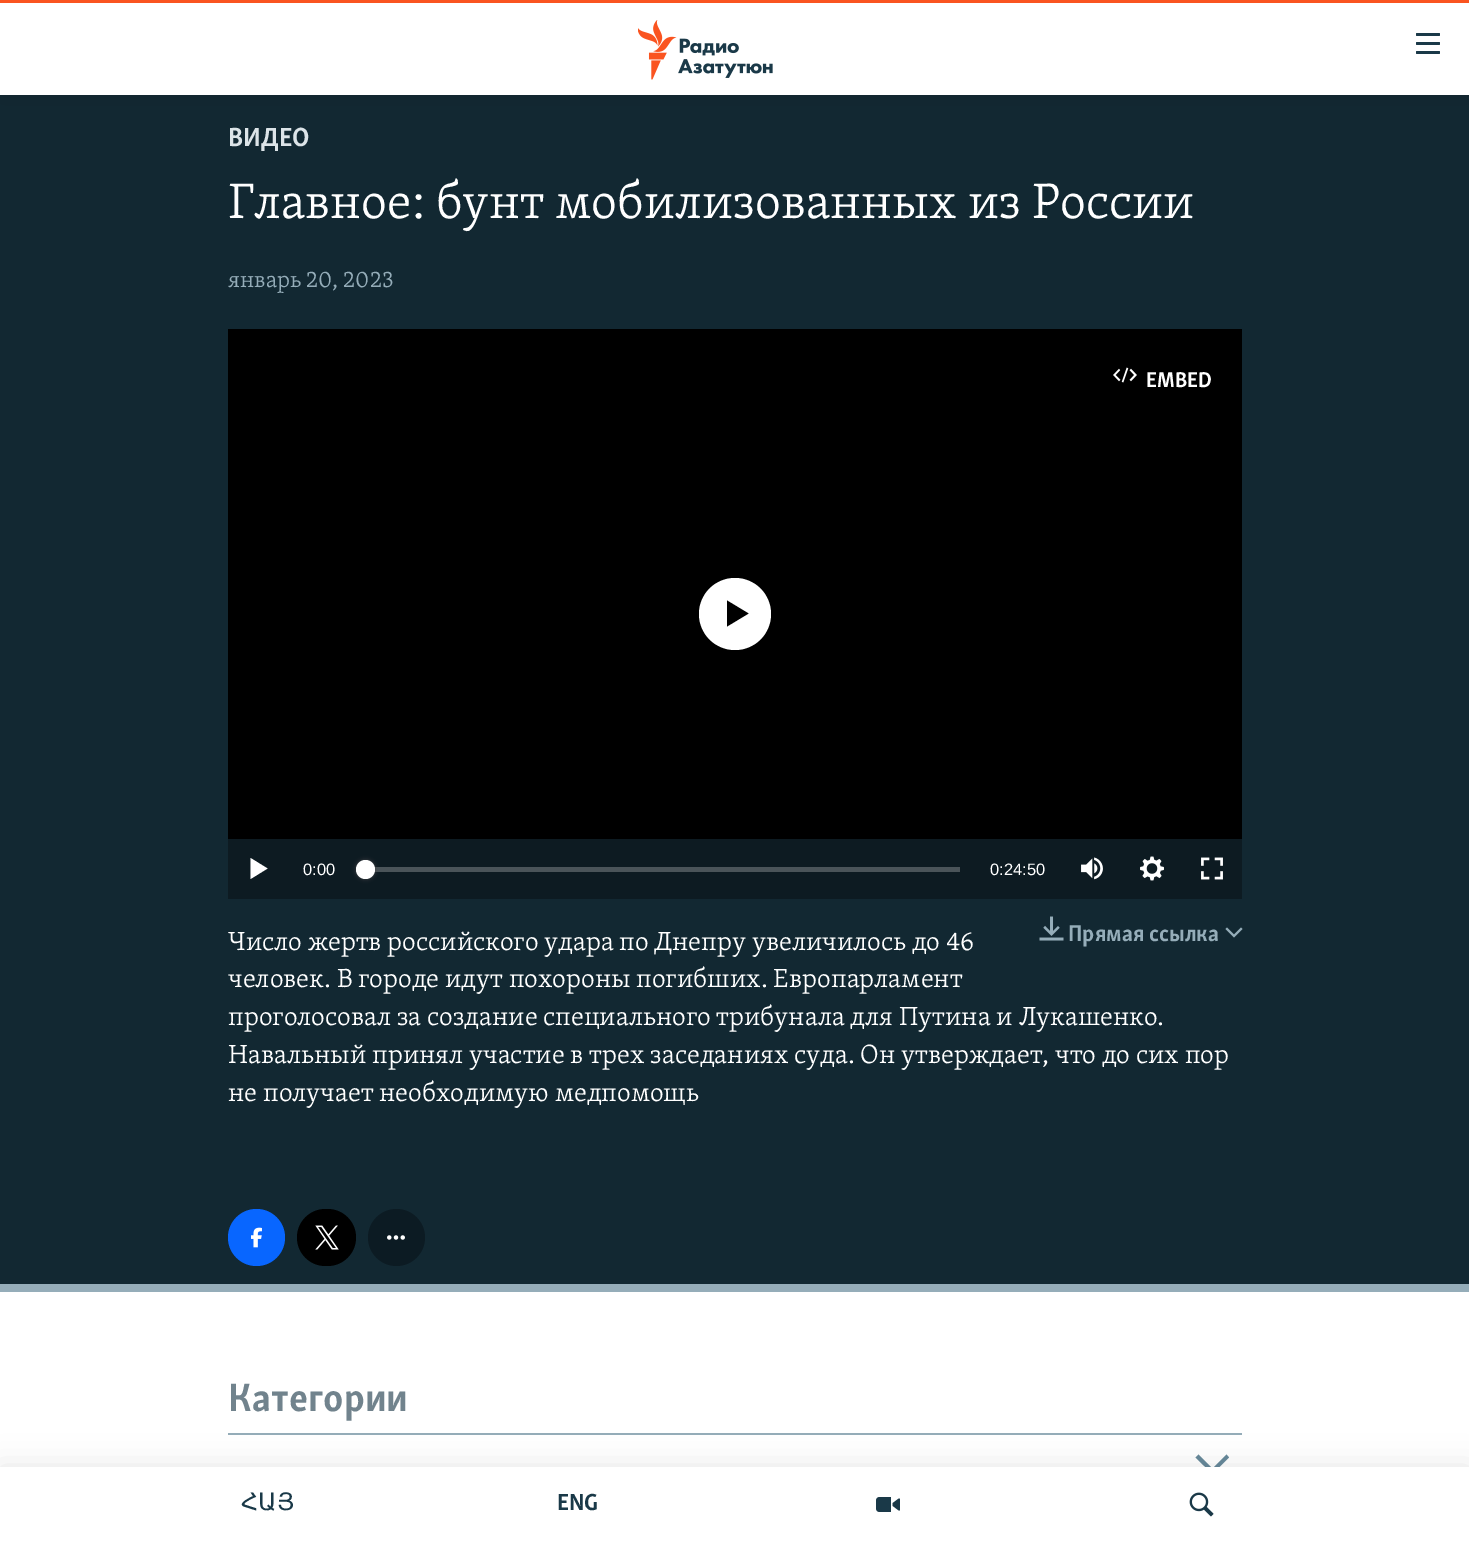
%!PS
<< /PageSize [1469 1542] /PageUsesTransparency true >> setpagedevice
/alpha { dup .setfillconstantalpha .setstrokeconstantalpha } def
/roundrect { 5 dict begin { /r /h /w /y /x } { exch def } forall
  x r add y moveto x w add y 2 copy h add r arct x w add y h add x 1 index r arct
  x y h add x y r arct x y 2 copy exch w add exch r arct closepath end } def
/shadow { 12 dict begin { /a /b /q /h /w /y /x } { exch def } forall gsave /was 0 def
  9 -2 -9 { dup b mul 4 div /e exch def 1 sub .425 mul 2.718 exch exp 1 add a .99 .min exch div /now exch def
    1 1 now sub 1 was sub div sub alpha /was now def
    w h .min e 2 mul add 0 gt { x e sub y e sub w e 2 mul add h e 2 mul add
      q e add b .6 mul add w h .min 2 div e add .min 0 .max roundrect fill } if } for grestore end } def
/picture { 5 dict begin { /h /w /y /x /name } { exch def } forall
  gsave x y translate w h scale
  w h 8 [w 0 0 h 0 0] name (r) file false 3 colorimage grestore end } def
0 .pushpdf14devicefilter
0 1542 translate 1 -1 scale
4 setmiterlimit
1 setgray
0 0 1469 1542 rectfill
0.071 0.157 0.196 setrgbcolor
0 95 1469 1189 rectfill
0.584 0.678 0.725 setrgbcolor
0 1284 1469 8 rectfill
/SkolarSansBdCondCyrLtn-Bold [27 0 0 -27 0 0] selectfont
0.863 0.894 0.91 setrgbcolor
228 146 moveto (ВИДЕО) show
/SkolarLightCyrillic-Light [51.25 0 0 -51.25 0 0] selectfont
1 setgray
228 218 moveto (Главное: бунт мобилизованных из России) show
/SkolarLightCyrillic-Light [23.5 0 0 -23.5 0 0] selectfont
0.584 0.678 0.725 setrgbcolor
228 287 moveto (январь 20, 2023) show
0 setgray
228 329 1014 510 rectfill
(img1.rgb) 1113 367 24 16 picture
/SkolarSansBdCondCyrLtn-Bold [22 0 0 -22 0 0] selectfont
1 setgray
1146 387 moveto (EMBED) show
newpath 735 614 36 0 360 arc closepath fill
0 setgray
newpath 727 626.5 moveto 748.5 613.5 lineto 727 600.5 lineto closepath fill
0.051 0.106 0.133 setrgbcolor
228 839 1014 60 rectfill
1 setgray
newpath 250.5 879 moveto 267.5 868.5 lineto 250.5 858 lineto closepath fill
/LiberationSans-Regular [16.5 0 0 -16.5 0 0] selectfont
303 875 moveto (0:00) show
0.29 0.329 0.349 setrgbcolor
374 867 586 5 rectfill
0.255 0.255 0.267 setrgbcolor
356 860 19 19 9.5 2 1 shadow
1 setgray
newpath 365.5 869.5 9.5 0 360 arc closepath fill
990 875 moveto (0:24:50) show
(img2.rgb) 1081 857 22 23 picture
(img3.rgb) 1140 856 24 25 picture
(img4.rgb) 1201 857 22 23 picture
(img5.rgb) 1039 916 25 25 picture
/SkolarSansBdCondCyrLtn-Bold [23.5 0 0 -23.5 0 0] selectfont
0.584 0.678 0.725 setrgbcolor
1068 941 moveto (Прямая ссылка) show
newpath 1225.5 929 moveto 1234 937.5 lineto 1242.5 929 lineto 1241 927.5 lineto 1234 934.5 lineto 1227 927.5 lineto closepath fill
/SkolarLightCyrillic-Light [27 0 0 -27 0 0] selectfont
1 setgray
228 950 moveto (Число жертв российского удара по Днепру увеличилось до 46) show
228 987 moveto (человек. В городе идут похороны погибших. Европарламент) show
228 1025 moveto (проголосовал за создание специального трибунала для Путина и Лукашенко.) show
228 1063 moveto (Навальный принял участие в трех заседаниях суда. Он утверждает, что до сих пор) show
228 1101 moveto (не получает необходимую медпомощь) show
0.031 0.4 1 setrgbcolor
newpath 256.5 1237.5 28.5 0 360 arc closepath fill
(img6.rgb) 251 1227 11 21 picture
0 setgray
297 1209 59 57 28.5 roundrect fill
(img7.rgb) 315 1225 24 25 picture
0.047 0.106 0.137 setrgbcolor
newpath 396.5 1237.5 28.5 0 360 arc closepath fill
(img8.rgb) 387 1235 18 5 picture
0.584 0.678 0.725 setrgbcolor
228 1433 1014 2 rectfill
/SkolarSansBdCondCyrLtn-Bold [40.5 0 0 -40.5 0 0] selectfont
0.443 0.514 0.553 setrgbcolor
228 1411 moveto (Категории) show
0.404 0.541 0.608 setrgbcolor
newpath 1195.5 1457.5 moveto 1212.5 1474 lineto 1229 1457.5 lineto 1226.5 1454.5 lineto 1212.5 1468.5 lineto 1198.5 1454.5 lineto closepath fill
0 setgray
0 0 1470 95 0 15 0.1 shadow
1 setgray
0 3 1469 92 rectfill
0.98 0.329 0.125 setrgbcolor
0 0 1469 3 rectfill
(img9.rgb) 638 20 135 60 picture
(img10.rgb) 1416 33 24 21 picture
0 setgray
0 1467 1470 75 0 15 0.1 shadow
1 setgray
0 1467 1469 75 rectfill
/DejaVuSans-Regular [24 0 0 -24 0 0] selectfont
0.102 0.224 0.282 setrgbcolor
241 1510 moveto (ՀԱՅ) show
/SkolarSansBdCondCyrLtn-Bold [24 0 0 -24 0 0] selectfont
557 1510 moveto (ENG) show
(img11.rgb) 876 1497 24 15 picture
(img12.rgb) 1189 1492 25 25 picture
.poppdf14devicefilter showpage
